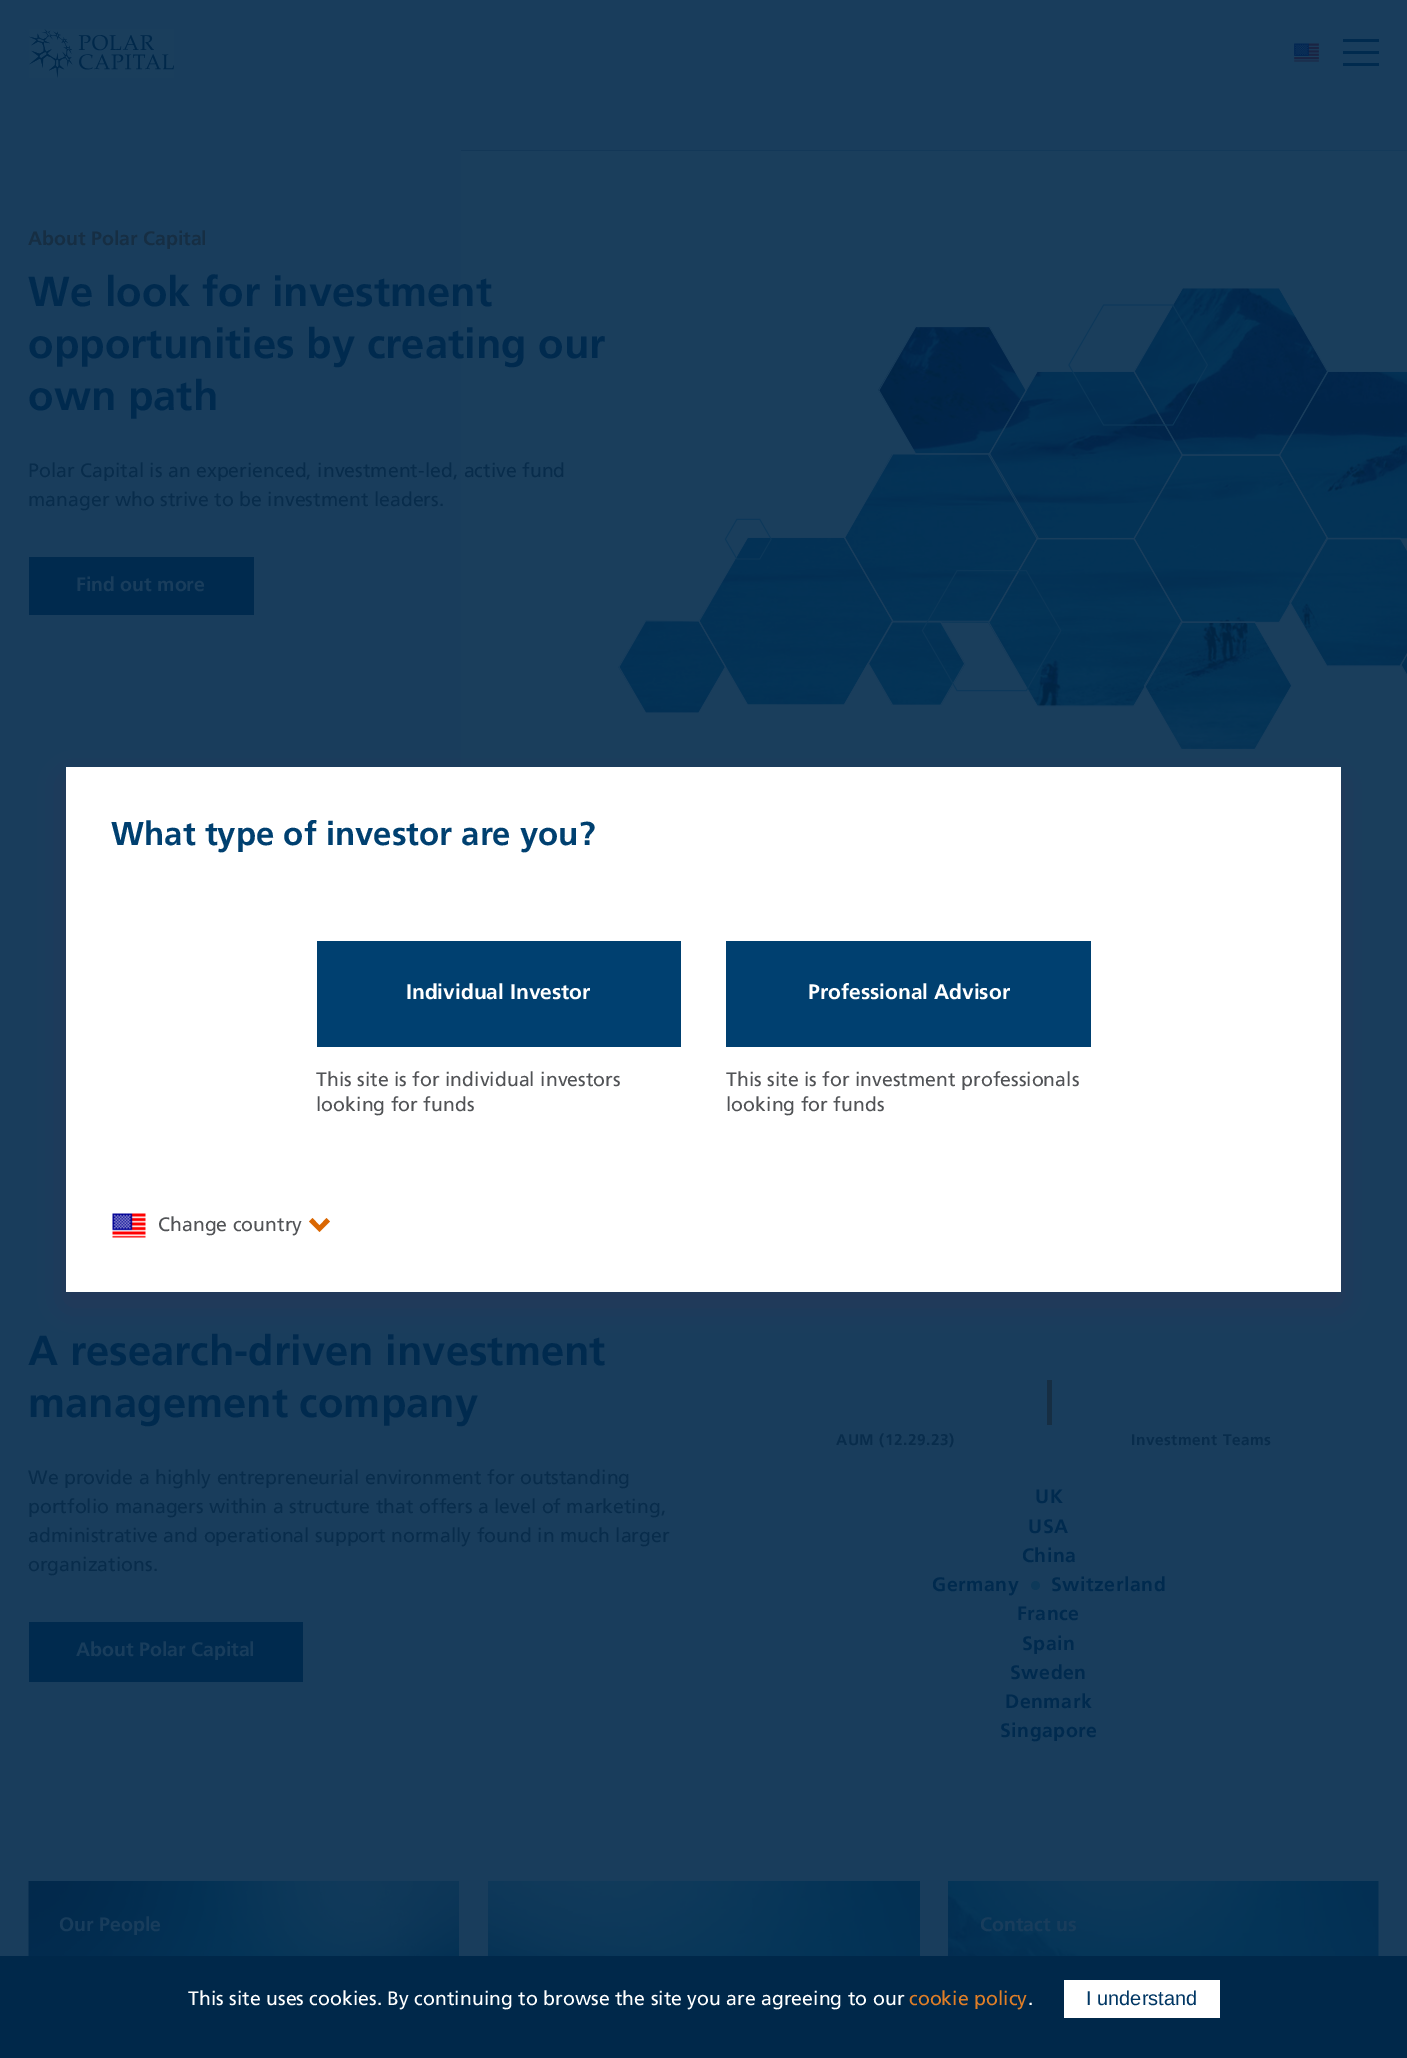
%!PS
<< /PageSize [1407 2058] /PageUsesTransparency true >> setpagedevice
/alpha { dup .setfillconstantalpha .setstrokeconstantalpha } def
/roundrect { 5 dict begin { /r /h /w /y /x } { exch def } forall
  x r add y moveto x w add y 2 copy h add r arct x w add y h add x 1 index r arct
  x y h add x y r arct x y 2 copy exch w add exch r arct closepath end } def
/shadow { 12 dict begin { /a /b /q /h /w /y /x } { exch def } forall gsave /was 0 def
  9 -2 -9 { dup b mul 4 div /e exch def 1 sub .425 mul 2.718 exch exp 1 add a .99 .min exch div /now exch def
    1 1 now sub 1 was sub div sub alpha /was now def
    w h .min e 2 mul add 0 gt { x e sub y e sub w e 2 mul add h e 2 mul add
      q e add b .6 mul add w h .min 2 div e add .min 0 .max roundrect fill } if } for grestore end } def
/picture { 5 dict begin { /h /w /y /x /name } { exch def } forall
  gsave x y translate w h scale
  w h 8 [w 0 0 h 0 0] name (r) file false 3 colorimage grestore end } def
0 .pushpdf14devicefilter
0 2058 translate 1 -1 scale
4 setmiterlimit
0.098 0.239 0.361 setrgbcolor
0 0 1407 2058 rectfill
(img1.rgb) 29 29 145 49 picture
(img2.rgb) 1294 43 25 19 picture
0 0.165 0.306 setrgbcolor
1343 39 36 3 rectfill
1343 51 36 3 rectfill
1343 63 36 3 rectfill
/Frutiger-Regular [19.5 0 0 -19.5 0 0] selectfont
0.086 0.18 0.263 setrgbcolor
28 245 moveto (About Polar Capital) show
(img3.rgb) 461 150 946 600 picture
(img4.rgb) 461 150 946 720 picture
/Frutiger-Regular [41.75 0 0 -41.75 0 0] selectfont
0 0.165 0.306 setrgbcolor
28 306 moveto (We look for investment) show
28 358 moveto (opportunities by creating our) show
28 410 moveto (own path) show
/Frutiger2-Regular [19.5 0 0 -19.5 0 0] selectfont
0.031 0.173 0.294 setrgbcolor
28 477 moveto (Polar Capital is an experienced, investment-led, active fund) show
28 506 moveto (manager who strive to be investment leaders.) show
0 0.165 0.306 setrgbcolor
29 557 225 58 rectfill
/Frutiger-Regular [19.5 0 0 -19.5 0 0] selectfont
0.098 0.239 0.361 setrgbcolor
76 591 moveto (Find out more) show
/Frutiger-Regular [41.75 0 0 -41.75 0 0] selectfont
0 0.165 0.306 setrgbcolor
28 1365 moveto (A research-driven investment) show
28 1417 moveto (management company) show
/Frutiger2-Regular [19.5 0 0 -19.5 0 0] selectfont
0.031 0.173 0.294 setrgbcolor
28 1484 moveto (We provide a highly entrepreneurial environment for outstanding) show
28 1513 moveto (portfolio managers within a structure that offers a level of marketing,) show
28 1542 moveto (administrative and operational support normally found in much larger) show
28 1571 moveto (organizations.) show
0 0.165 0.306 setrgbcolor
29 1622 274 60 rectfill
/Frutiger-Regular [19.5 0 0 -19.5 0 0] selectfont
0.098 0.239 0.361 setrgbcolor
76 1656 moveto (About Polar Capital) show
0.086 0.18 0.263 setrgbcolor
1047 1380 5 45 rectfill
/Frutiger-Regular [15.5 0 0 -15.5 0 0] selectfont
0.031 0.173 0.294 setrgbcolor
836 1445 moveto 0.5 0 (AUM \(12.29.23\)) ashow
1131 1445 moveto 0.5 0 (Investment Teams) ashow
/Frutiger-Regular [19.5 0 0 -19.5 0 0] selectfont
0 0.165 0.306 setrgbcolor
1035 1503 moveto 0.5 0 (UK) ashow
1028 1533 moveto 0.5 0 (USA) ashow
1022 1562 moveto 0.5 0 (China) ashow
932 1591 moveto 0.5 0 (Germany) ashow
0.051 0.224 0.349 setrgbcolor
newpath 1035.5 1585.5 4.5 0 360 arc closepath fill
0 0.165 0.306 setrgbcolor
1051 1591 moveto 0.5 0 (Switzerland) ashow
1017 1620 moveto 0.5 0 (France) ashow
1022 1650 moveto 0.5 0 (Spain) ashow
1010 1679 moveto 0.5 0 (Sweden) ashow
1005 1708 moveto 0.5 0 (Denmark) ashow
1000 1737 moveto 0.5 0 (Singapore) ashow
(img5.rgb) 28 1881 431 75 picture
0.098 0.239 0.361 setrgbcolor
59 1931 moveto (Our People) show
(img6.rgb) 488 1881 432 75 picture
(img7.rgb) 948 1881 431 75 picture
980 1931 moveto (Contact us) show
0.149 0.212 0.349 setrgbcolor
66 779 1275 525 0 17 1 shadow
1 setgray
66 767 1275 525 rectfill
/Frutiger-Regular [33 0 0 -33 0 0] selectfont
0 0.251 0.439 setrgbcolor
111 845 moveto (What type of investor are you?) show
317 941 364 106 rectfill
/Frutiger-Regular [21 0 0 -21 0 0] selectfont
1 setgray
406 999 moveto (Individual Investor) show
/Frutiger2-Regular [19.5 0 0 -19.5 0 0] selectfont
0.318 0.325 0.337 setrgbcolor
316 1086 moveto (This site is for individual investors) show
316 1111 moveto (looking for funds) show
0 0.251 0.439 setrgbcolor
726 941 365 106 rectfill
/Frutiger-Regular [21 0 0 -21 0 0] selectfont
1 setgray
808 999 moveto (Professional Advisor) show
/Frutiger2-Regular [19.5 0 0 -19.5 0 0] selectfont
0.318 0.325 0.337 setrgbcolor
726 1086 moveto (This site is for investment professionals) show
726 1111 moveto (looking for funds) show
(img8.rgb) 112 1213 34 25 picture
158 1231 moveto (Change country) show
0.855 0.404 0.008 setrgbcolor
newpath 326.5 1218 moveto 319.5 1225.5 lineto 312.5 1218 lineto 309 1221.5 lineto 319.5 1232 lineto 330 1221.5 lineto closepath eofill
0 0.157 0.29 setrgbcolor
0 1956 1407 102 rectfill
1 setgray
188 2005 moveto (This site uses cookies. By continuing to browse the site you are agreeing to our) show
0.878 0.494 0.153 setrgbcolor
909 2005 moveto (cookie policy) show
1 setgray
1028 2005 moveto (.) show
1064 1980 156 38 rectfill
/LiberationSans-Regular [20 0 0 -20 0 0] selectfont
0 0.212 0.388 setrgbcolor
1086 2005 moveto (I understand) show
.poppdf14devicefilter showpage
